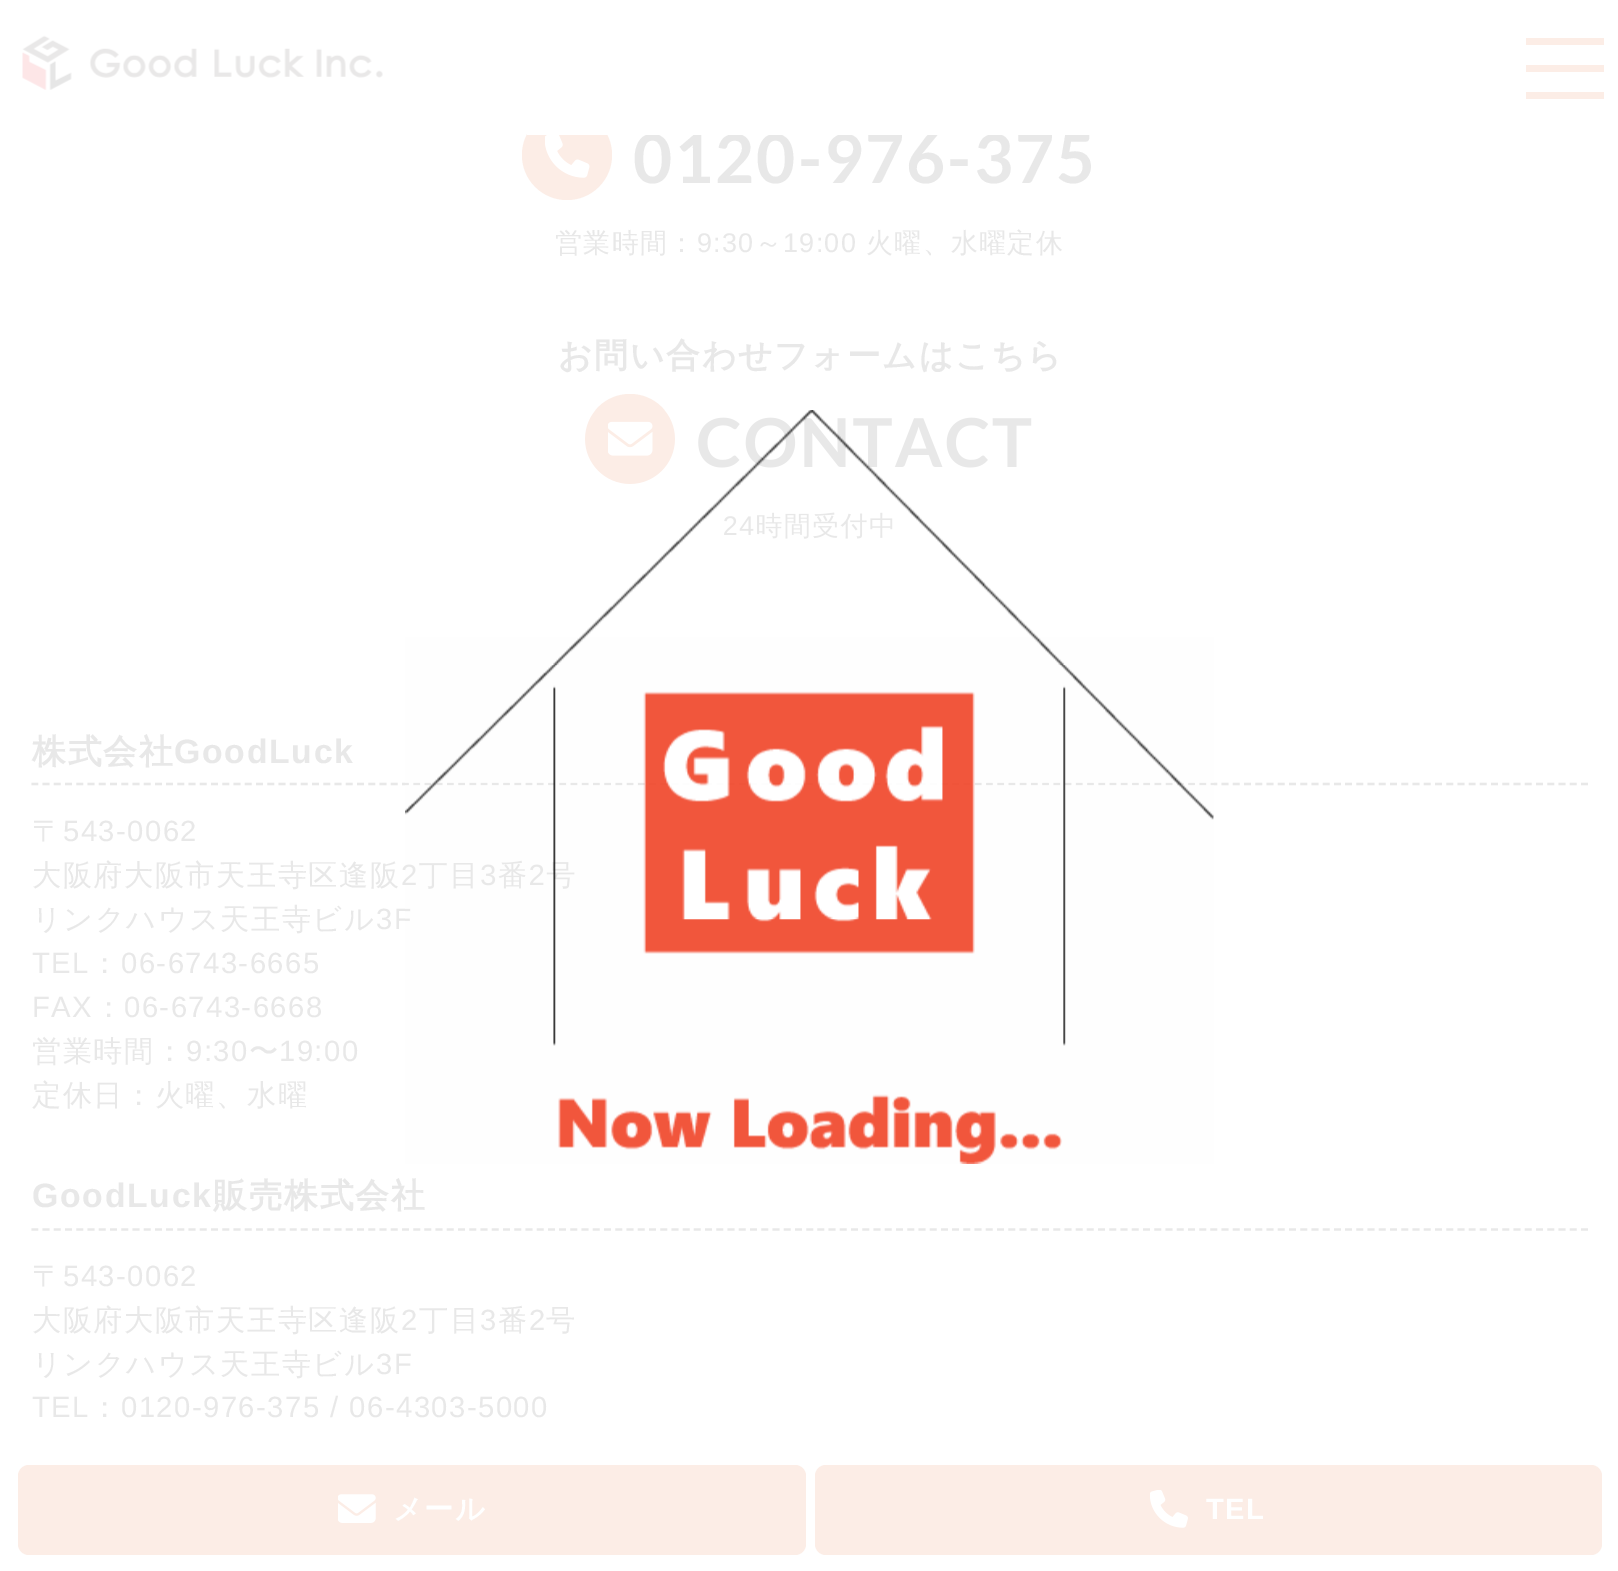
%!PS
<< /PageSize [1618 1571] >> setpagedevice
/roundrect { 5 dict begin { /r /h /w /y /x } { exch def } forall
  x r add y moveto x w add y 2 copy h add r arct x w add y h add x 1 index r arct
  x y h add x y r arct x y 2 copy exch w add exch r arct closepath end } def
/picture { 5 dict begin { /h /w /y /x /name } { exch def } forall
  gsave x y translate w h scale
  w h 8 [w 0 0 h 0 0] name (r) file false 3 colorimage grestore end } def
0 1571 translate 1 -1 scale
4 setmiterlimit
1 setgray
0 0 1618 1571 rectfill
0.988 0.929 0.902 setrgbcolor
newpath 567 155 45 0 360 arc closepath fill
/Lato-Bold [67.5 0 0 -67.5 0 0] selectfont
0.91 setgray
633 183 moveto 2 0 (0120-976-375) ashow
1 setgray
527 110 563 25 rectfill
(img1.rgb) 22 35 361 55 picture
0.988 0.929 0.902 setrgbcolor
1526 38 78 7 rectfill
1526 65 78 7 rectfill
1526 92 78 7 rectfill
(img2.rgb) 545 135 45 43 picture
/WenQuanYiZenHei-Medium [27 0 0 -27 0 0] selectfont
0.91 setgray
555 252 moveto 1.25 0 (営業時間：) ashow
/LiberationSans-Regular [27 0 0 -27 0 0] selectfont
697 252 moveto 1.25 0 (9:30) ashow
/WenQuanYiZenHei-Medium [27 0 0 -27 0 0] selectfont
755 252 moveto 1.25 0 (～) ashow
/LiberationSans-Regular [27 0 0 -27 0 0] selectfont
783 252 moveto 1.25 0 (19:00) ashow
/WenQuanYiZenHei-Medium [27 0 0 -27 0 0] selectfont
866 252 moveto 1.25 0 (火曜、水曜定休) ashow
/WenQuanYiZenHei-Bold [33.75 0 0 -33.75 0 0] selectfont
558 367 moveto 1.75 0 (お問い合わせフォームはこちら) ashow
0.988 0.929 0.902 setrgbcolor
newpath 630 439 45 0 360 arc closepath fill
(img3.rgb) 608 421 45 35 picture
/Lato-Bold [67.5 0 0 -67.5 0 0] selectfont
0.91 setgray
696 467 moveto 2 0 (CONTACT) ashow
/LiberationSans-Regular [27 0 0 -27 0 0] selectfont
723 535 moveto 1.25 0 (24) ashow
/WenQuanYiZenHei-Medium [27 0 0 -27 0 0] selectfont
755 535 moveto 1.25 0 (時間受付中) ashow
2.2 setlinewidth
[6.75 4.48] 0 setdash
newpath 31.5 784 moveto 1588.5 784 lineto stroke
/LiberationSans-Regular [29.25 0 0 -29.25 0 0] selectfont
401 885 moveto 1.45 0 (2) ashow
/WenQuanYiZenHei-Medium [29.25 0 0 -29.25 0 0] selectfont
419 885 moveto 1.45 0 (丁目) ashow
/LiberationSans-Regular [29.25 0 0 -29.25 0 0] selectfont
480 885 moveto 1.45 0 (3) ashow
/WenQuanYiZenHei-Medium [29.25 0 0 -29.25 0 0] selectfont
498 885 moveto 1.45 0 (番) ashow
/LiberationSans-Regular [29.25 0 0 -29.25 0 0] selectfont
529 885 moveto 1.45 0 (2) ashow
/WenQuanYiZenHei-Medium [29.25 0 0 -29.25 0 0] selectfont
546 885 moveto 1.45 0 (号) ashow
/LiberationSans-Regular [29.25 0 0 -29.25 0 0] selectfont
376 929 moveto 1.45 0 (3F) ashow
(img4.rgb) 405 410 809 754 picture
/WenQuanYiZenHei-Bold [33.75 0 0 -33.75 0 0] selectfont
32 763 moveto 1.75 0 (株式会社) ashow
/LiberationSans-Bold [33.75 0 0 -33.75 0 0] selectfont
174 763 moveto 1.75 0 (GoodLuck) ashow
/WenQuanYiZenHei-Medium [29.25 0 0 -29.25 0 0] selectfont
32 841 moveto 1.45 0 (〒) ashow
/LiberationSans-Regular [29.25 0 0 -29.25 0 0] selectfont
63 841 moveto 1.45 0 (543-0062) ashow
/WenQuanYiZenHei-Medium [29.25 0 0 -29.25 0 0] selectfont
32 885 moveto 1.45 0 (大阪府大阪市天王寺区逢阪) ashow
32 929 moveto 1.45 0 (リンクハウス天王寺ビル) ashow
/LiberationSans-Regular [29.25 0 0 -29.25 0 0] selectfont
32 973 moveto 1.45 0 (TEL) ashow
/WenQuanYiZenHei-Medium [29.25 0 0 -29.25 0 0] selectfont
90 973 moveto 1.45 0 (：) ashow
/LiberationSans-Regular [29.25 0 0 -29.25 0 0] selectfont
121 973 moveto 1.45 0 (06-6743-6665) ashow
32 1017 moveto 1.45 0 (FAX) ashow
/WenQuanYiZenHei-Medium [29.25 0 0 -29.25 0 0] selectfont
94 1017 moveto 1.45 0 (：) ashow
/LiberationSans-Regular [29.25 0 0 -29.25 0 0] selectfont
124 1017 moveto 1.45 0 (06-6743-6668) ashow
/WenQuanYiZenHei-Medium [29.25 0 0 -29.25 0 0] selectfont
32 1061 moveto 1.45 0 (営業時間：) ashow
/LiberationSans-Regular [29.25 0 0 -29.25 0 0] selectfont
186 1061 moveto 1.45 0 (9:30) ashow
/WenQuanYiZenHei-Medium [29.25 0 0 -29.25 0 0] selectfont
249 1061 moveto 1.45 0 (〜) ashow
/LiberationSans-Regular [29.25 0 0 -29.25 0 0] selectfont
279 1061 moveto 1.45 0 (19:00) ashow
/WenQuanYiZenHei-Medium [29.25 0 0 -29.25 0 0] selectfont
32 1105 moveto 1.45 0 (定休日：火曜、水曜) ashow
newpath 31.5 1229.5 moveto 1588.5 1229.5 lineto stroke
/LiberationSans-Bold [33.75 0 0 -33.75 0 0] selectfont
32 1207 moveto 1.75 0 (GoodLuck) ashow
/WenQuanYiZenHei-Bold [33.75 0 0 -33.75 0 0] selectfont
213 1207 moveto 1.75 0 (販売株式会社) ashow
/WenQuanYiZenHei-Medium [29.25 0 0 -29.25 0 0] selectfont
32 1286 moveto 1.45 0 (〒) ashow
/LiberationSans-Regular [29.25 0 0 -29.25 0 0] selectfont
63 1286 moveto 1.45 0 (543-0062) ashow
/WenQuanYiZenHei-Medium [29.25 0 0 -29.25 0 0] selectfont
32 1330 moveto 1.45 0 (大阪府大阪市天王寺区逢阪) ashow
/LiberationSans-Regular [29.25 0 0 -29.25 0 0] selectfont
401 1330 moveto 1.45 0 (2) ashow
/WenQuanYiZenHei-Medium [29.25 0 0 -29.25 0 0] selectfont
419 1330 moveto 1.45 0 (丁目) ashow
/LiberationSans-Regular [29.25 0 0 -29.25 0 0] selectfont
480 1330 moveto 1.45 0 (3) ashow
/WenQuanYiZenHei-Medium [29.25 0 0 -29.25 0 0] selectfont
498 1330 moveto 1.45 0 (番) ashow
/LiberationSans-Regular [29.25 0 0 -29.25 0 0] selectfont
529 1330 moveto 1.45 0 (2) ashow
/WenQuanYiZenHei-Medium [29.25 0 0 -29.25 0 0] selectfont
546 1330 moveto 1.45 0 (号) ashow
32 1374 moveto 1.45 0 (リンクハウス天王寺ビル) ashow
/LiberationSans-Regular [29.25 0 0 -29.25 0 0] selectfont
376 1374 moveto 1.45 0 (3F) ashow
32 1417 moveto 1.45 0 (TEL) ashow
/WenQuanYiZenHei-Medium [29.25 0 0 -29.25 0 0] selectfont
90 1417 moveto 1.45 0 (：) ashow
/LiberationSans-Regular [29.25 0 0 -29.25 0 0] selectfont
121 1417 moveto 1.45 0 (0120-976-375 / 06-4303-5000) ashow
0.988 0.929 0.902 setrgbcolor
18 1465 788 90 11 roundrect fill
(img5.rgb) 338 1494 38 29 picture
/WenQuanYiZenHei-Bold [29.25 0 0 -29.25 0 0] selectfont
1 setgray
393 1519 moveto 1.45 0 (メール) ashow
0.988 0.929 0.902 setrgbcolor
815 1465 787 90 11 roundrect fill
(img6.rgb) 1150 1490 38 38 picture
/LiberationSans-Bold [29.25 0 0 -29.25 0 0] selectfont
1 setgray
1206 1519 moveto 1.45 0 (TEL) ashow
showpage
